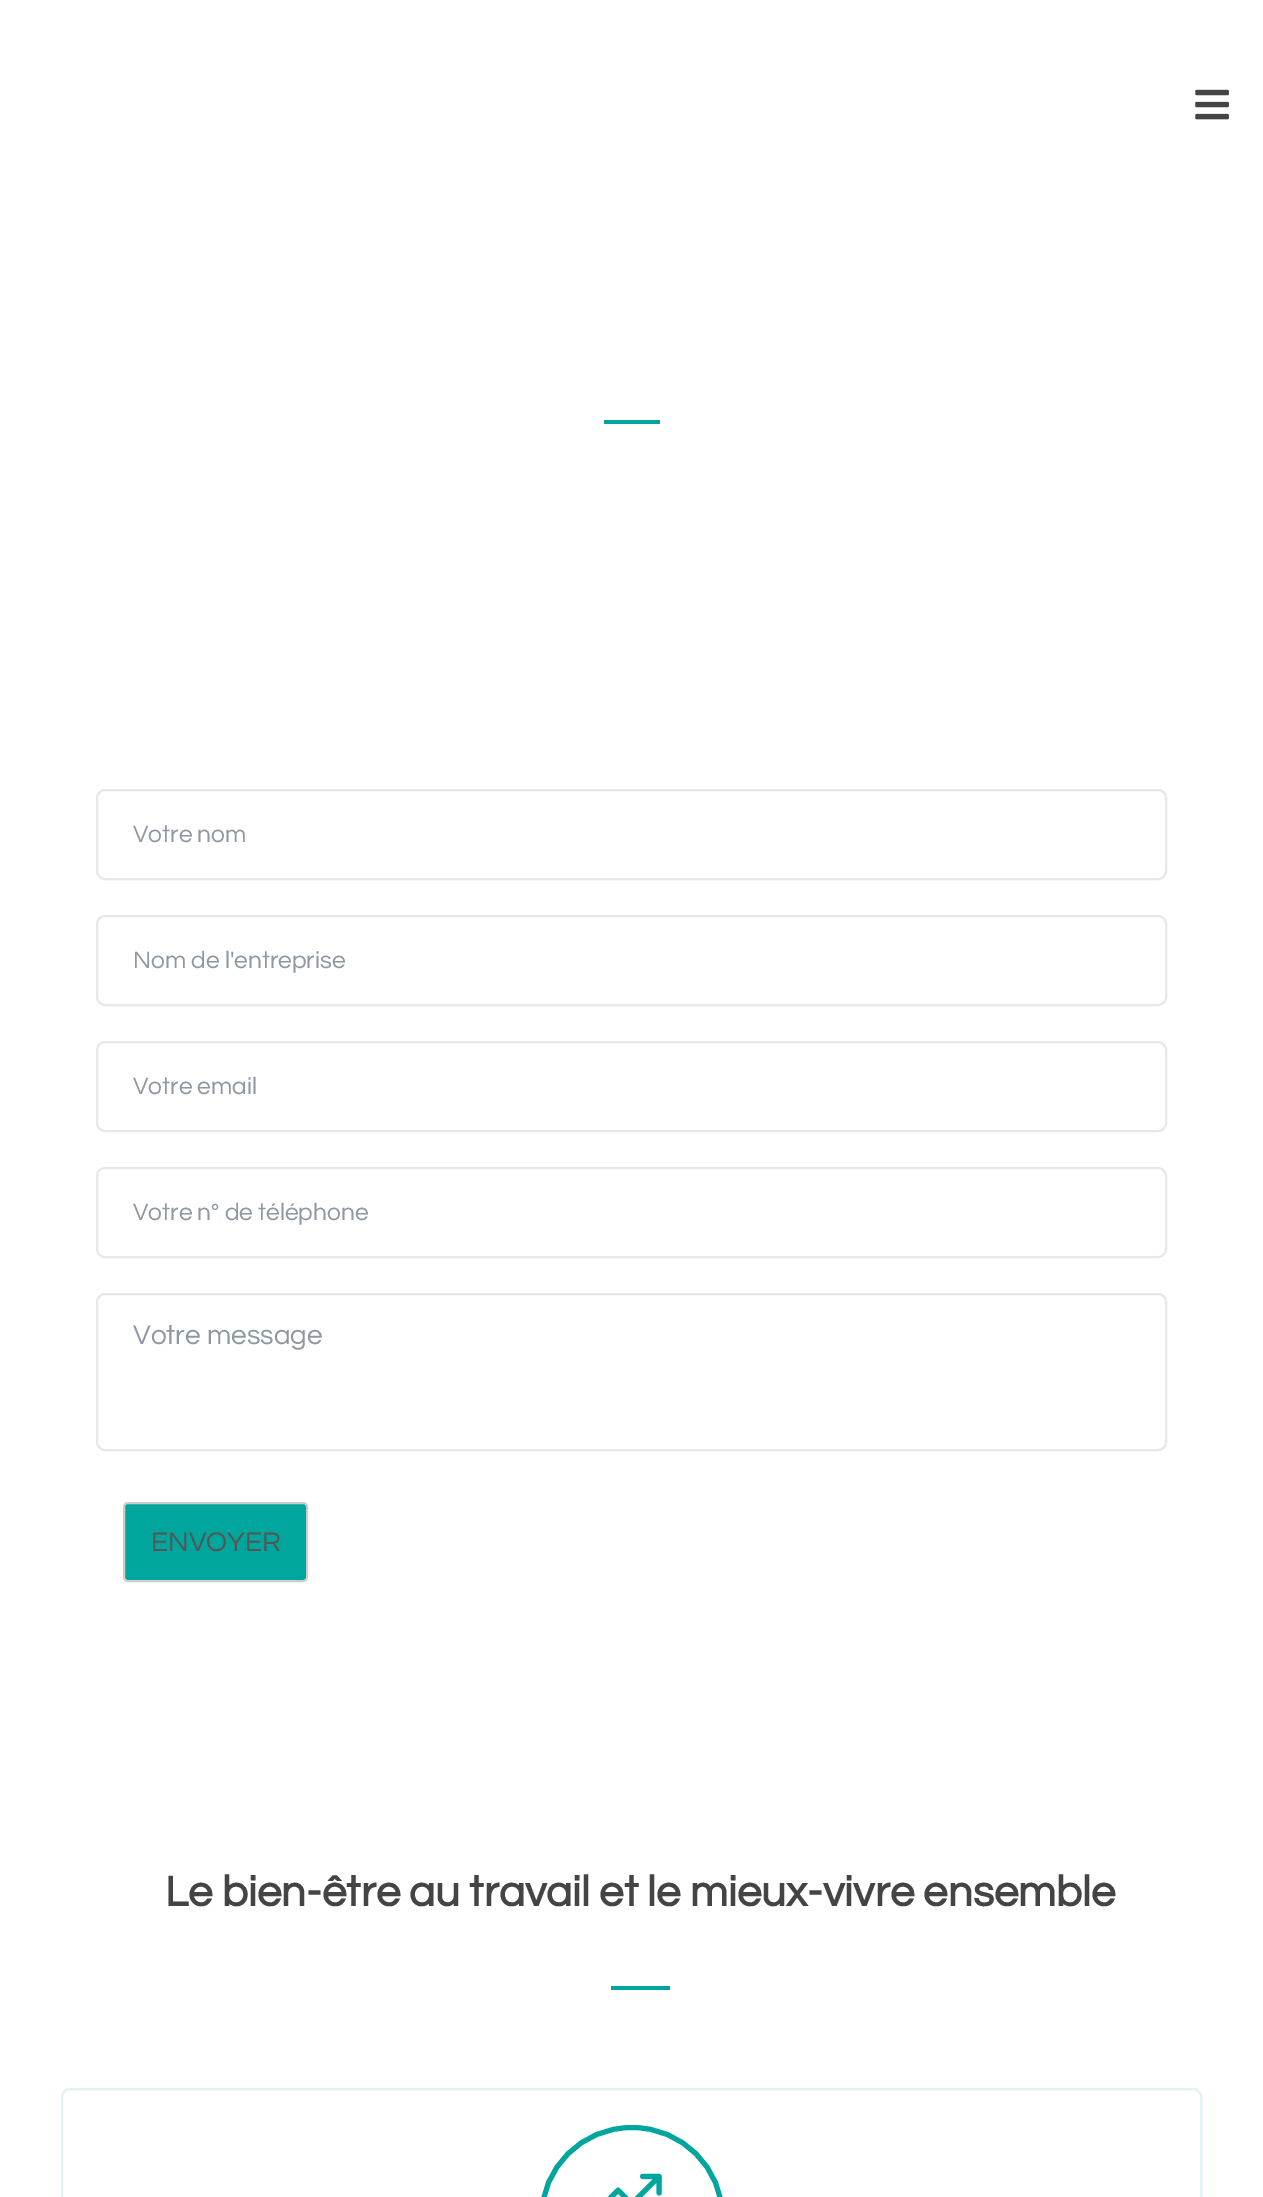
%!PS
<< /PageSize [1263 2197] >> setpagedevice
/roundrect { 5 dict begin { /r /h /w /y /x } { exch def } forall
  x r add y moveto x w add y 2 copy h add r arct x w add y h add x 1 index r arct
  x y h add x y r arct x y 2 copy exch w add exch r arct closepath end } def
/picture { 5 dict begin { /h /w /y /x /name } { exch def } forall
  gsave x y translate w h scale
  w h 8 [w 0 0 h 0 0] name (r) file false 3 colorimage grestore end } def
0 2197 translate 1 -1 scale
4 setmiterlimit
1 setgray
0 0 1263 2197 rectfill
(img1.rgb) 1195 89 34 31 picture
0 0.651 0.616 setrgbcolor
604 420 56 4 rectfill
0.902 0.91 0.922 setrgbcolor
2 setlinewidth
97 790 1069 89 8 roundrect stroke
/Questrial-Regular [24.5 0 0 -24.5 0 0] selectfont
0.557 0.596 0.635 setrgbcolor
133 842 moveto (Votre nom) show
0.902 0.91 0.922 setrgbcolor
97 916 1069 89 8 roundrect stroke
0.557 0.596 0.635 setrgbcolor
133 968 moveto (Nom de l'entreprise) show
0.902 0.91 0.922 setrgbcolor
97 1042 1069 89 8 roundrect stroke
0.557 0.596 0.635 setrgbcolor
133 1094 moveto (Votre email) show
0.902 0.91 0.922 setrgbcolor
97 1168 1069 89 8 roundrect stroke
0.557 0.596 0.635 setrgbcolor
133 1220 moveto (Votre n° de téléphone) show
0.902 0.91 0.922 setrgbcolor
97 1294 1069 156 8 roundrect stroke
/Questrial-Regular [28 0 0 -28 0 0] selectfont
0.557 0.596 0.635 setrgbcolor
133 1344 moveto (Votre message) show
0 0.651 0.616 setrgbcolor
124 1503 183 78 4 roundrect gsave fill grestore
0.8 setgray
stroke
0.333 setgray
151 1551 moveto (ENVOYER) show
/Questrial-Bold [43.75 0 0 -43.75 0 0] selectfont
0.267 setgray
165 1906 moveto (Le bien-être au travail et le mieux-vivre ensemble) show
0 0.651 0.616 setrgbcolor
611 1986 59 4 rectfill
0.871 0.953 0.949 setrgbcolor
62 2089 1139 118 8 roundrect stroke
0 0.651 0.616 setrgbcolor
5 setlinewidth
541.5 2127.5 181 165 90 roundrect stroke
(img2.rgb) 607 2173 55 24 picture
showpage
